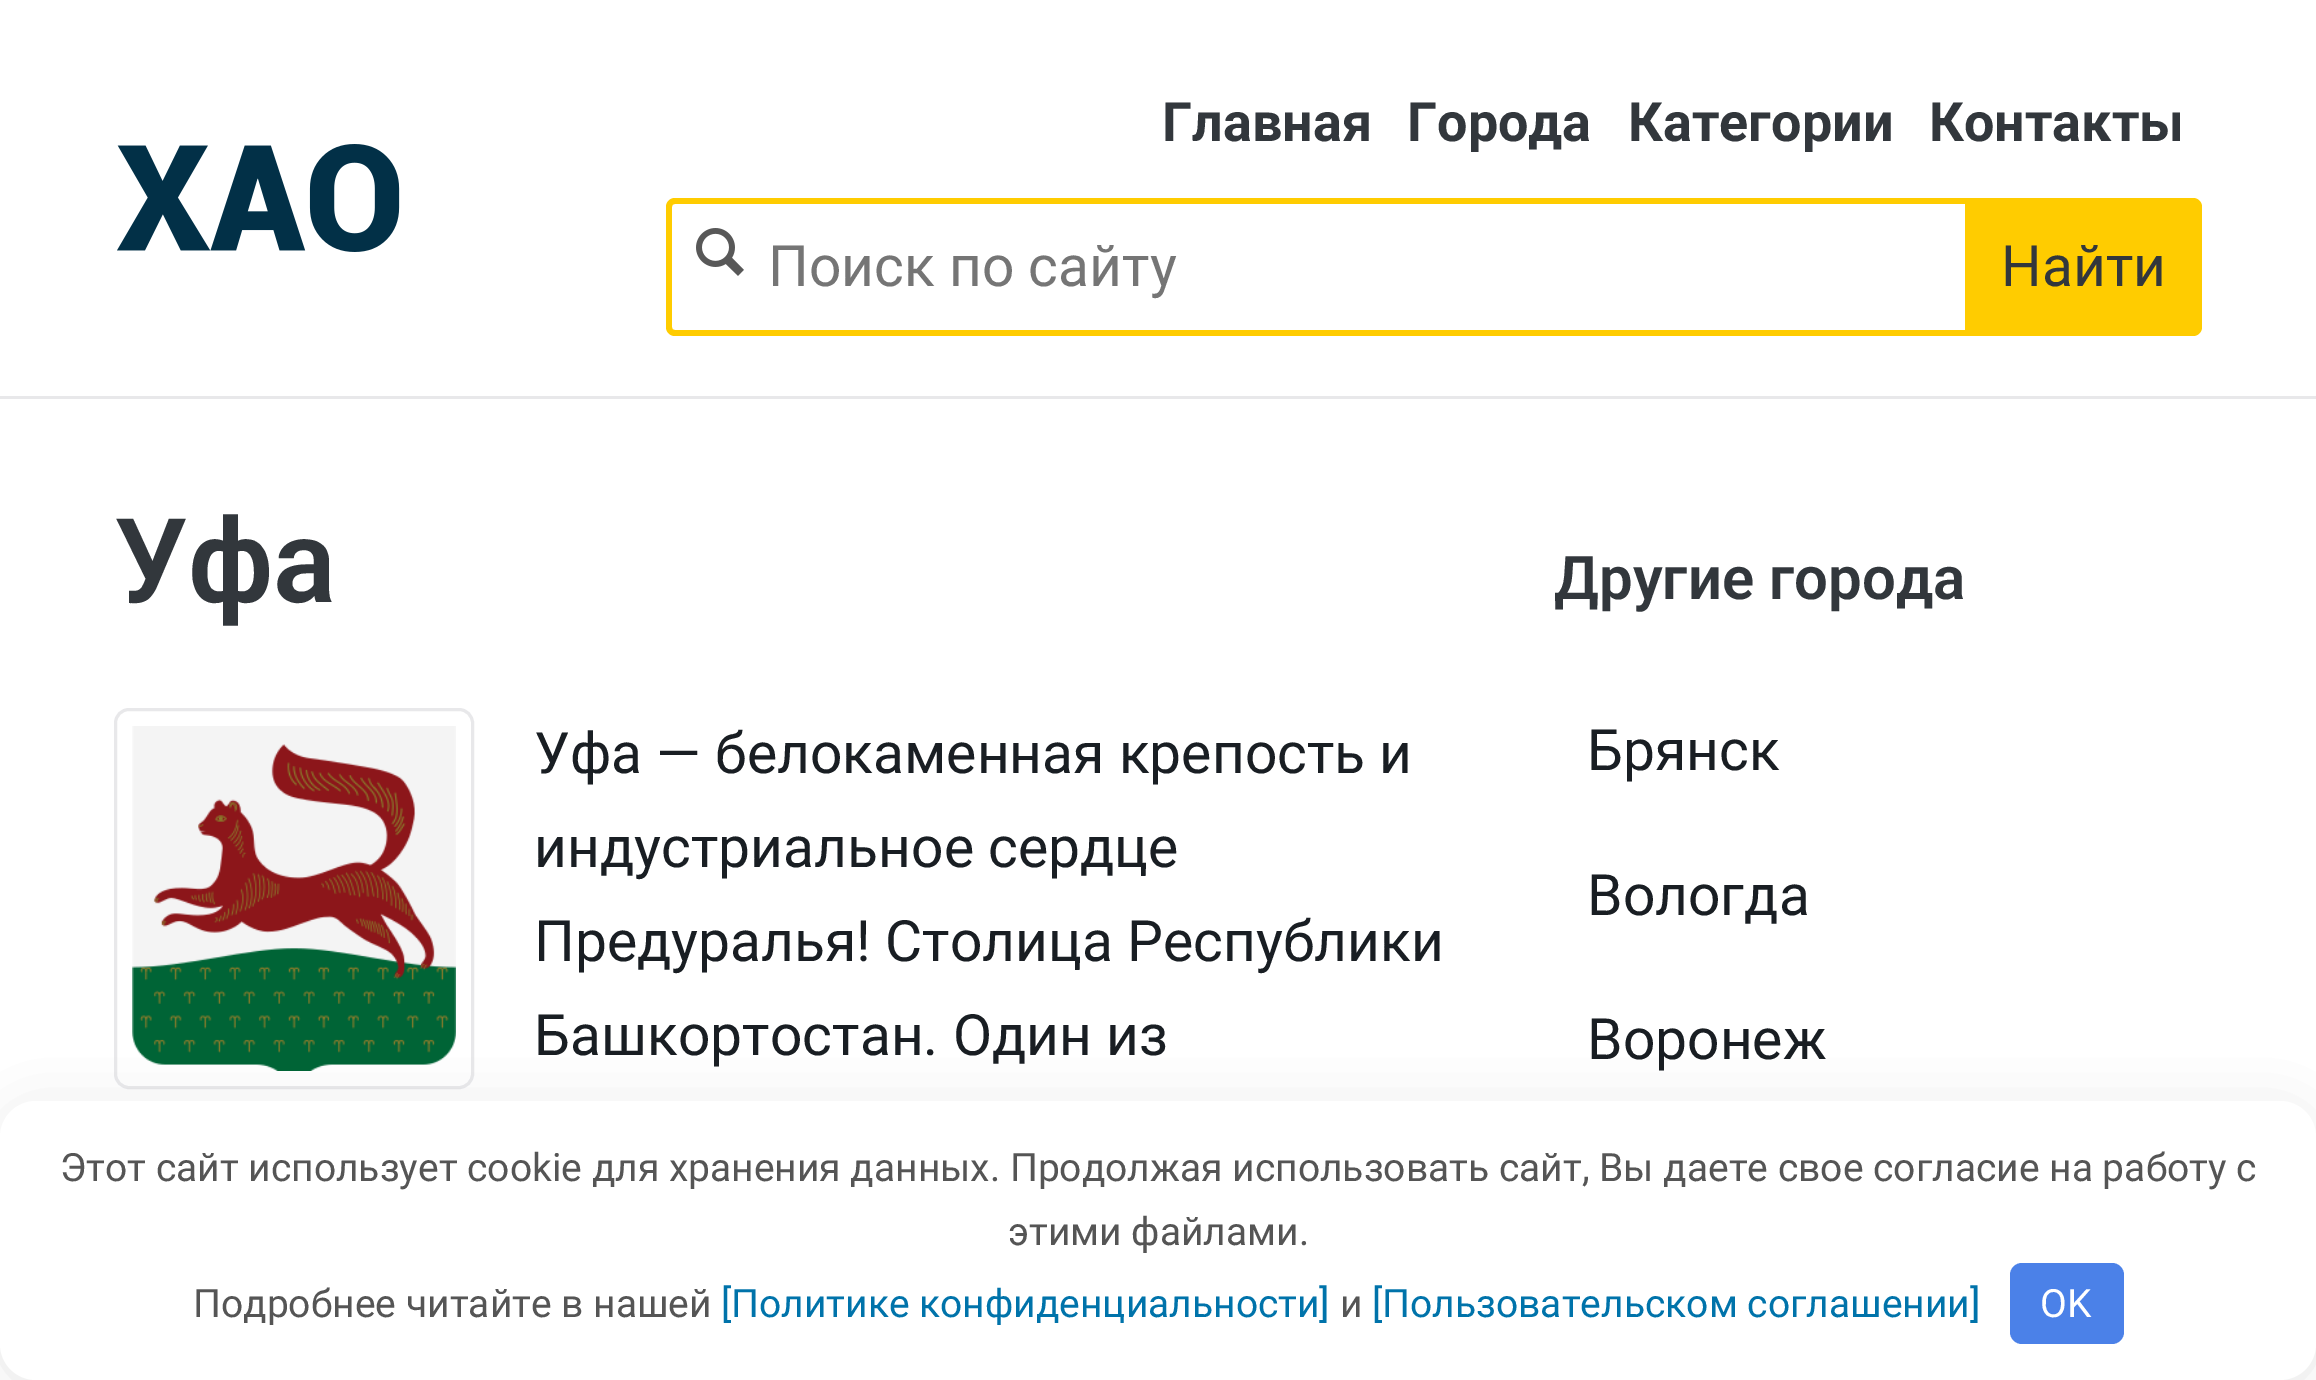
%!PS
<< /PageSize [2316 1380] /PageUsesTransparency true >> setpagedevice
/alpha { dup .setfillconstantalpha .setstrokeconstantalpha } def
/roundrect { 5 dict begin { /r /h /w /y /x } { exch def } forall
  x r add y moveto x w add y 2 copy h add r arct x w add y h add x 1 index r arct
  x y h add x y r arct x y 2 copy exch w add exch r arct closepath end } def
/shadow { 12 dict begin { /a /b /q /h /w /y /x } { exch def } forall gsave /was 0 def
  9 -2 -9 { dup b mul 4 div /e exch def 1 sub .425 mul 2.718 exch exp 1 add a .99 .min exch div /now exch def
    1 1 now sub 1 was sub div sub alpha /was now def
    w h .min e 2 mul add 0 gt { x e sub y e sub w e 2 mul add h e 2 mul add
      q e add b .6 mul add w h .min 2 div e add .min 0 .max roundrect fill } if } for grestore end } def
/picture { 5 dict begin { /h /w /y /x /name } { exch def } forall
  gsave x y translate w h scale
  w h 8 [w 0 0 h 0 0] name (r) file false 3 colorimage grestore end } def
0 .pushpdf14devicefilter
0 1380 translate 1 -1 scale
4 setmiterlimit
1 setgray
0 0 2316 1380 rectfill
0.91 0.91 0.918 setrgbcolor
0 396 2316 3 rectfill
(img1.rgb) 117 144 283 108 picture
/Roboto-Bold [54 0 0 -54 0 0] selectfont
0.196 0.216 0.235 setrgbcolor
1162 141 moveto (Главная) show
1407 141 moveto (Города) show
1628 141 moveto (Категории) show
1929 141 moveto (Контакты) show
1 0.8 0 setrgbcolor
newpath 675 198 moveto 1965 198 lineto 1965 336 lineto 675 336 lineto 670 336 666 332 666 327 curveto 666 207 lineto 666 202 670 198 675 198 curveto closepath 675 204 moveto 1965 204 lineto 1965 330 lineto 675 330 lineto 673 330 672 329 672 327 curveto 672 207 lineto 672 205 673 204 675 204 curveto closepath eofill
(img2.rgb) 696 228 48 48 picture
/Roboto-Regular [57 0 0 -57 0 0] selectfont
0.459 setgray
768 286 moveto (Поиск по сайту) show
1 0.8 0 setrgbcolor
newpath 1965 198 moveto 2193 198 lineto 2198 198 2202 202 2202 207 curveto 2202 327 lineto 2202 332 2198 336 2193 336 curveto 1965 336 lineto closepath fill
0.196 0.216 0.235 setrgbcolor
2001 286 moveto (Найти) show
/Roboto-SemiBold [117 0 0 -117 0 0] selectfont
114 602 moveto (Уфа) show
0.91 0.91 0.918 setrgbcolor
3 setlinewidth
115.5 709.5 357 378 13.5 roundrect stroke
(img3.rgb) 132 726 324 345 picture
/Roboto-Regular [57 0 0 -57 0 0] selectfont
0.098 0.118 0.137 setrgbcolor
534 773 moveto (Уфа — белокаменная крепость и) show
534 867 moveto (индустриальное сердце) show
534 961 moveto (Предуралья! Столица Республики) show
534 1055 moveto (Башкортостан. Один из) show
/Roboto-SemiBold [60 0 0 -60 0 0] selectfont
0.196 0.216 0.235 setrgbcolor
1554 599 moveto (Другие города) show
/Roboto-Regular [57 0 0 -57 0 0] selectfont
0.098 0.118 0.137 setrgbcolor
1587 770 moveto (Брянск) show
1587 915 moveto (Вологда) show
1587 1059 moveto (Воронеж) show
0.161 0.173 0.22 setrgbcolor
15 1125 2286 249 21 30 0.2 shadow
1 setgray
0 1101 2316 279 36 roundrect fill
/Roboto-Regular [39 0 0 -39 0 0] selectfont
0.333 setgray
60 1181 moveto (Этот сайт использует cookie для хранения данных. Продолжая использовать сайт, Вы даете свое согласие на работу с) show
1008 1245 moveto (этими файлами.) show
193 1317 moveto (Подробнее читайте в нашей) show
0 0.451 0.667 setrgbcolor
721 1317 moveto ([Политике конфиденциальности]) show
0.333 setgray
1340 1317 moveto (и) show
0 0.451 0.667 setrgbcolor
1372 1317 moveto ([Пользовательском соглашении]) show
0.294 0.506 0.91 setrgbcolor
2010 1263 114 81 12 roundrect fill
1 setgray
2040 1317 moveto (OK) show
.poppdf14devicefilter showpage
